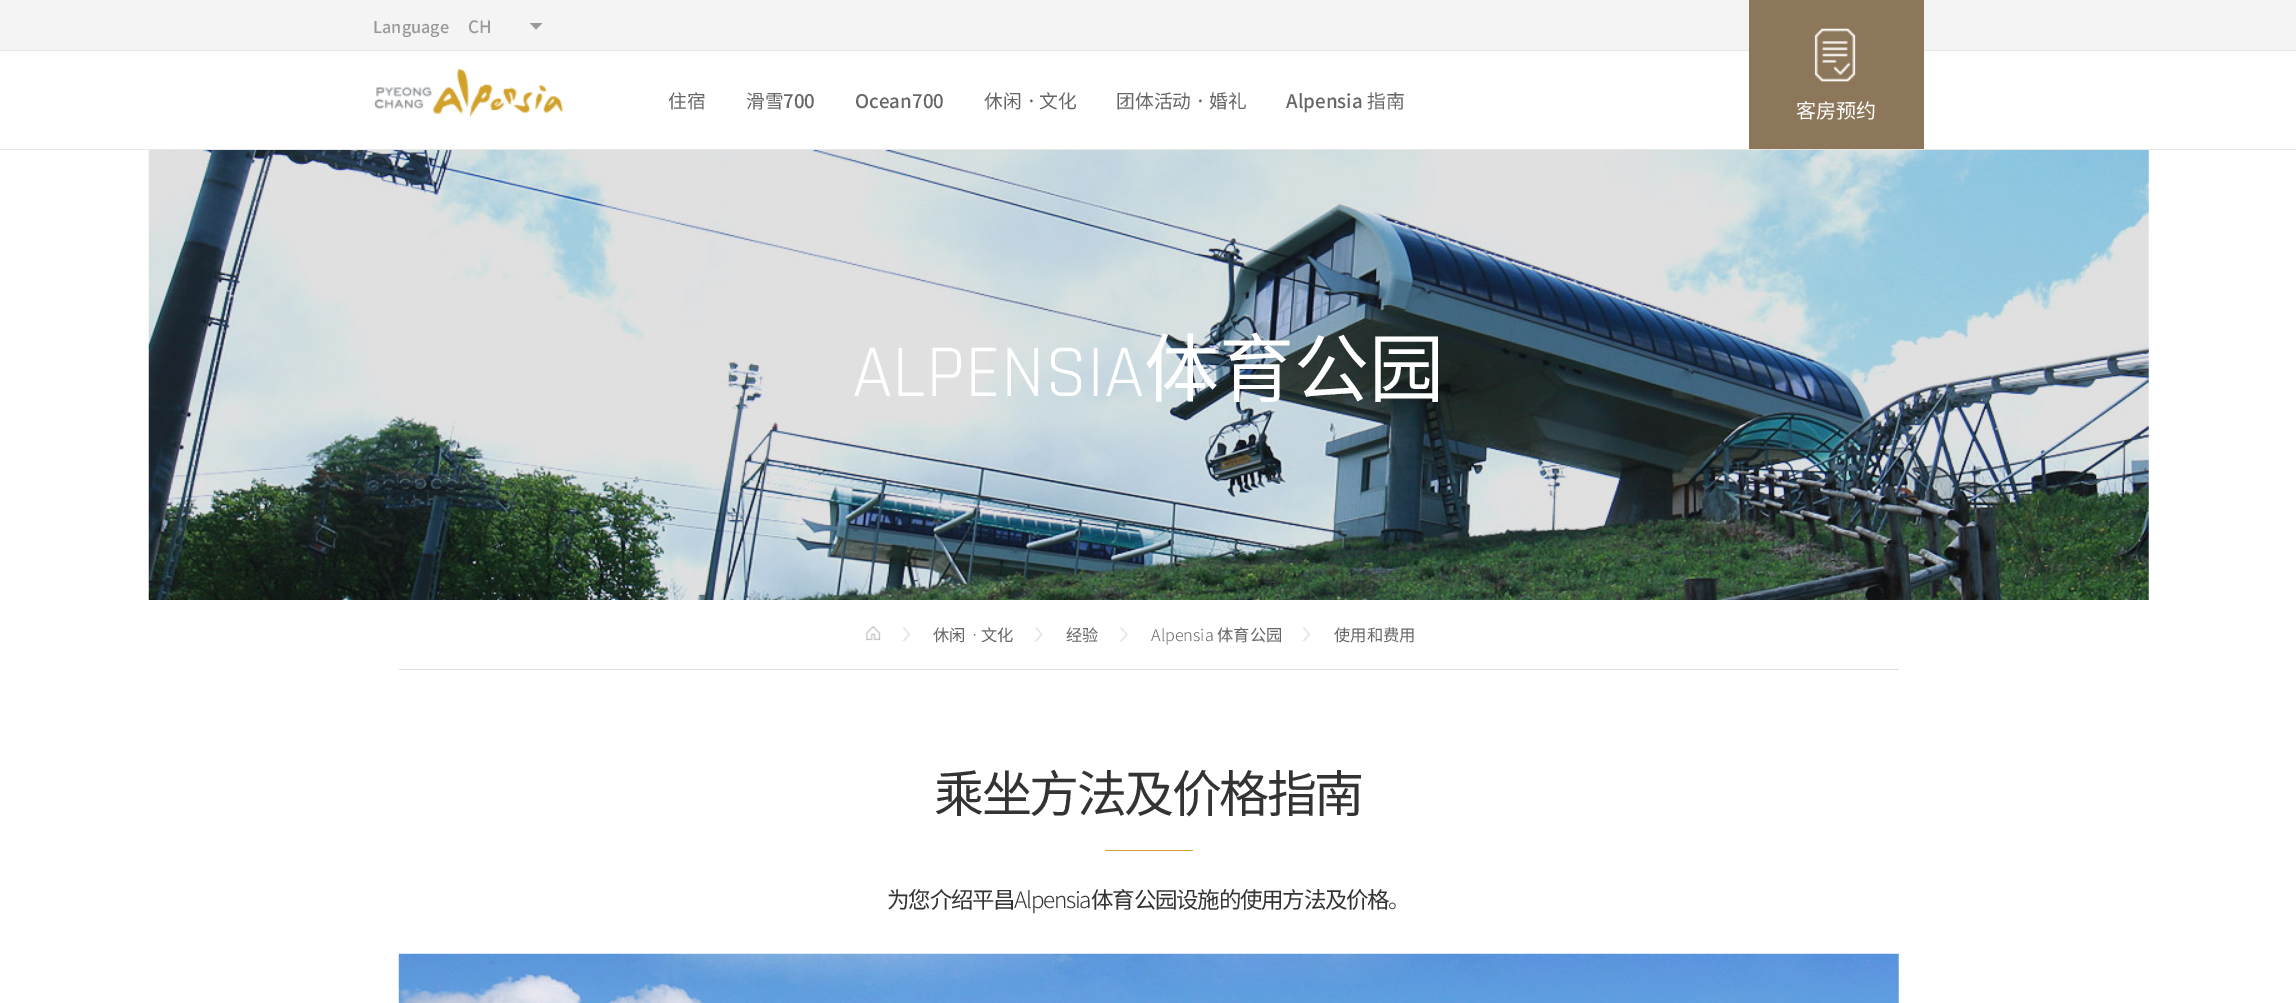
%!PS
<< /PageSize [2296 1003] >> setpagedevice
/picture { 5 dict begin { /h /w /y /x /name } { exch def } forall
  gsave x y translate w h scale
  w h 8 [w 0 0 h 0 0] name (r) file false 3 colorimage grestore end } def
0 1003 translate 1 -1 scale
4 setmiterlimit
1 setgray
0 0 2296 1003 rectfill
0.906 setgray
0 149 2296 1 rectfill
0.957 setgray
0 0 2296 50 rectfill
0.906 setgray
0 50 2296 1 rectfill
/NotoSansKR-Medium [16.25 0 0 -16.25 0 0] selectfont
0.6 setgray
373 33 moveto (Language) show
/NotoSansKR-Medium [17 0 0 -17 0 0] selectfont
468 33 moveto (CH) show
newpath 530 23 moveto 542.5 23 lineto 536 29.5 lineto closepath fill
0.553 0.467 0.353 setrgbcolor
1749 0 175 149 rectfill
(img1.rgb) 1814 28 42 54 picture
/NotoSansCJKSC-Regular [20 0 0 -20 0 0] selectfont
1 setgray
1796 118 moveto (客房预约) show
(img2.rgb) 374 68 189 49 picture
/NotoSansCJKSC-Regular [18.75 0 0 -18.75 0 0] selectfont
0.4 setgray
668 108 moveto (住宿) show
746 108 moveto (滑雪) show
/NotoSansKR-Medium [18.75 0 0 -18.75 0 0] selectfont
783 108 moveto (700) show
855 108 moveto (Ocean700) show
/NotoSansCJKSC-Regular [18.75 0 0 -18.75 0 0] selectfont
984 108 moveto (休闲) show
/NotoSansKR-Medium [18.75 0 0 -18.75 0 0] selectfont
1022 108 moveto (ㆍ) show
/NotoSansCJKSC-Regular [18.75 0 0 -18.75 0 0] selectfont
1039 108 moveto (文化) show
1116 108 moveto (团体活动) show
/NotoSansKR-Medium [18.75 0 0 -18.75 0 0] selectfont
1191 108 moveto (ㆍ) show
/NotoSansCJKSC-Regular [18.75 0 0 -18.75 0 0] selectfont
1209 108 moveto (婚礼) show
/NotoSansKR-Medium [18.75 0 0 -18.75 0 0] selectfont
1286 108 moveto (Alpensia) show
/NotoSansCJKSC-Regular [18.75 0 0 -18.75 0 0] selectfont
1367 108 moveto (指南) show
(img3.rgb) 148 150 2001 450 picture
/Rajdhani-Regular [75 0 0 -75 0 0] selectfont
1 setgray
852 396 moveto (ALPENSIA) show
/NotoSansCJKSC-Regular [75 0 0 -75 0 0] selectfont
1144 396 moveto (体育公园) show
0.867 setgray
399 669 1500 1 rectfill
(img4.rgb) 866 626 15 15 picture
(img5.rgb) 902 627 8 15 picture
/NotoSansCJKSC-Regular [16.25 0 0 -16.25 0 0] selectfont
0.4 setgray
933 641 moveto (休闲) show
/NotoSansKR-Light [16.25 0 0 -16.25 0 0] selectfont
966 641 moveto (ㆍ) show
/NotoSansCJKSC-Regular [16.25 0 0 -16.25 0 0] selectfont
981 641 moveto (文化) show
(img6.rgb) 1035 627 8 15 picture
1066 641 moveto (经验) show
(img7.rgb) 1120 627 8 15 picture
/NotoSansKR-Light [16.25 0 0 -16.25 0 0] selectfont
1151 641 moveto (Alpensia) show
/NotoSansCJKSC-Regular [16.25 0 0 -16.25 0 0] selectfont
1217 641 moveto (体育公园) show
(img5.rgb) 1302 627 8 15 picture
1334 641 moveto (使用和费用) show
/NotoSansCJKSC-Regular [50 0 0 -50 0 0] selectfont
0.2 setgray
934 812 moveto -2.5 0 (乘坐方法及价格指南) ashow
0.82 0.631 0.165 setrgbcolor
1105 850 88 1 rectfill
/NotoSansCJKSC-Regular [22.5 0 0 -22.5 0 0] selectfont
0.2 setgray
887 908 moveto -1.25 0 (为您介绍平昌) ashow
/NotoSansKR-Light [22.5 0 0 -22.5 0 0] selectfont
1014 908 moveto -1.25 0 (Alpensia) ashow
/NotoSansCJKSC-Regular [22.5 0 0 -22.5 0 0] selectfont
1091 908 moveto -1.25 0 (体育公园设施的使用方法及价格) ashow
/NotoSansKR-Light [22.5 0 0 -22.5 0 0] selectfont
1388 908 moveto -1.25 0 (。) ashow
(img8.rgb) 398 953 1501 50 picture
showpage
